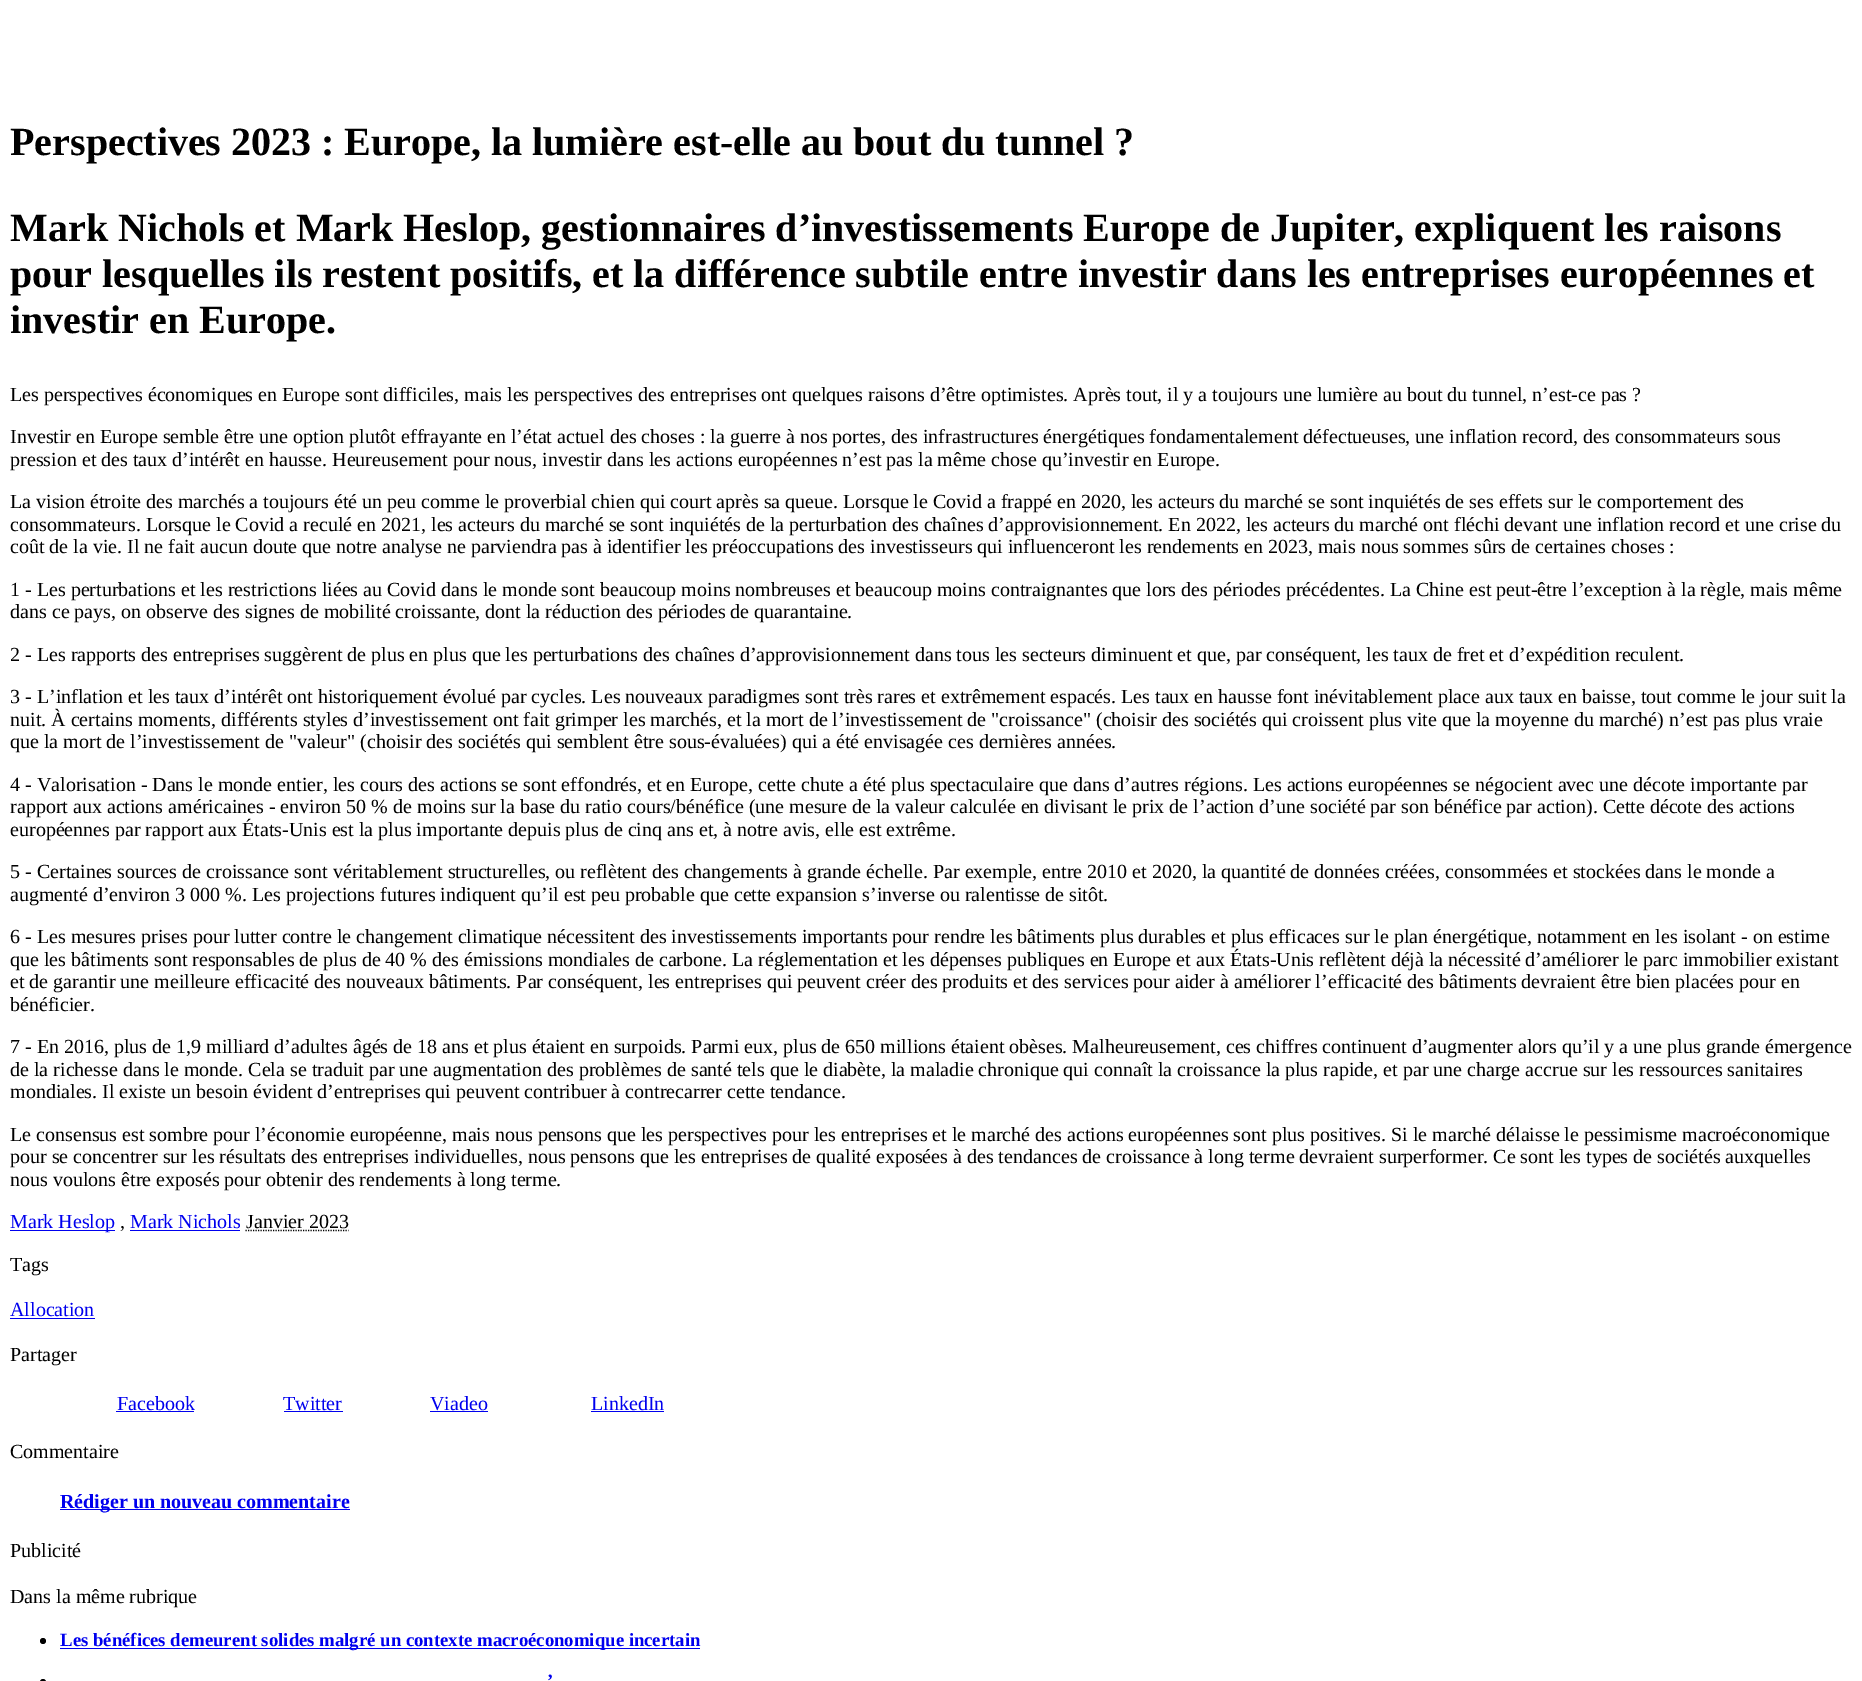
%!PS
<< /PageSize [1862 1681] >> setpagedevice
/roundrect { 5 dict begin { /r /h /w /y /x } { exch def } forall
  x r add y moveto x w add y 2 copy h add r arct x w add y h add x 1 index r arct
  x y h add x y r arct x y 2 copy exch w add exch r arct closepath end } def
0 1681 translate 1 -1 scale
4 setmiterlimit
1 setgray
0 0 1862 1681 rectfill
/LiberationSerif-Bold [40 0 0 -40 0 0] selectfont
0 setgray
10 155 moveto (Perspectives 2023 : Europe, la lumière est-elle au bout du tunnel ?) show
10 241 moveto (Mark Nichols et Mark Heslop, gestionnaires d’investissements Europe de Jupiter, expliquent les raisons) show
10 287 moveto (pour lesquelles ils restent positifs, et la différence subtile entre investir dans les entreprises européennes et) show
10 333 moveto (investir en Europe.) show
/LiberationSerif-Regular [20 0 0 -20 0 0] selectfont
10 401 moveto (Les perspectives économiques en Europe sont difficiles, mais les perspectives des entreprises ont quelques raisons d’être optimistes. Après tout, il y a toujours une lumière au bout du tunnel, n’est-ce pas ?) show
10 443 moveto (Investir en Europe semble être une option plutôt effrayante en l’état actuel des choses : la guerre à nos portes, des infrastructures énergétiques fondamentalement défectueuses, une inflation record, des consommateurs sous) show
10 466 moveto (pression et des taux d’intérêt en hausse. Heureusement pour nous, investir dans les actions européennes n’est pas la même chose qu’investir en Europe.) show
10 508 moveto (La vision étroite des marchés a toujours été un peu comme le proverbial chien qui court après sa queue. Lorsque le Covid a frappé en 2020, les acteurs du marché se sont inquiétés de ses effets sur le comportement des) show
10 531 moveto (consommateurs. Lorsque le Covid a reculé en 2021, les acteurs du marché se sont inquiétés de la perturbation des chaînes d’approvisionnement. En 2022, les acteurs du marché ont fléchi devant une inflation record et une crise du) show
10 553 moveto (coût de la vie. Il ne fait aucun doute que notre analyse ne parviendra pas à identifier les préoccupations des investisseurs qui influenceront les rendements en 2023, mais nous sommes sûrs de certaines choses :) show
10 596 moveto (1 - Les perturbations et les restrictions liées au Covid dans le monde sont beaucoup moins nombreuses et beaucoup moins contraignantes que lors des périodes précédentes. La Chine est peut-être l’exception à la règle, mais même) show
10 618 moveto (dans ce pays, on observe des signes de mobilité croissante, dont la réduction des périodes de quarantaine.) show
10 661 moveto (2 - Les rapports des entreprises suggèrent de plus en plus que les perturbations des chaînes d’approvisionnement dans tous les secteurs diminuent et que, par conséquent, les taux de fret et d’expédition reculent.) show
10 703 moveto (3 - L’inflation et les taux d’intérêt ont historiquement évolué par cycles. Les nouveaux paradigmes sont très rares et extrêmement espacés. Les taux en hausse font inévitablement place aux taux en baisse, tout comme le jour suit la) show
10 726 moveto (nuit. À certains moments, différents styles d’investissement ont fait grimper les marchés, et la mort de l’investissement de "croissance" \(choisir des sociétés qui croissent plus vite que la moyenne du marché\) n’est pas plus vraie) show
10 748 moveto (que la mort de l’investissement de "valeur" \(choisir des sociétés qui semblent être sous-évaluées\) qui a été envisagée ces dernières années.) show
10 791 moveto (4 - Valorisation - Dans le monde entier, les cours des actions se sont effondrés, et en Europe, cette chute a été plus spectaculaire que dans d’autres régions. Les actions européennes se négocient avec une décote importante par) show
10 813 moveto (rapport aux actions américaines - environ 50 % de moins sur la base du ratio cours/bénéfice \(une mesure de la valeur calculée en divisant le prix de l’action d’une société par son bénéfice par action\). Cette décote des actions) show
10 836 moveto (européennes par rapport aux États-Unis est la plus importante depuis plus de cinq ans et, à notre avis, elle est extrême.) show
10 878 moveto (5 - Certaines sources de croissance sont véritablement structurelles, ou reflètent des changements à grande échelle. Par exemple, entre 2010 et 2020, la quantité de données créées, consommées et stockées dans le monde a) show
10 901 moveto (augmenté d’environ 3 000 %. Les projections futures indiquent qu’il est peu probable que cette expansion s’inverse ou ralentisse de sitôt.) show
10 943 moveto (6 - Les mesures prises pour lutter contre le changement climatique nécessitent des investissements importants pour rendre les bâtiments plus durables et plus efficaces sur le plan énergétique, notamment en les isolant - on estime) show
10 966 moveto (que les bâtiments sont responsables de plus de 40 % des émissions mondiales de carbone. La réglementation et les dépenses publiques en Europe et aux États-Unis reflètent déjà la nécessité d’améliorer le parc immobilier existant) show
10 988 moveto (et de garantir une meilleure efficacité des nouveaux bâtiments. Par conséquent, les entreprises qui peuvent créer des produits et des services pour aider à améliorer l’efficacité des bâtiments devraient être bien placées pour en) show
10 1011 moveto (bénéficier.) show
10 1053 moveto (7 - En 2016, plus de 1,9 milliard d’adultes âgés de 18 ans et plus étaient en surpoids. Parmi eux, plus de 650 millions étaient obèses. Malheureusement, ces chiffres continuent d’augmenter alors qu’il y a une plus grande émergence) show
10 1076 moveto (de la richesse dans le monde. Cela se traduit par une augmentation des problèmes de santé tels que le diabète, la maladie chronique qui connaît la croissance la plus rapide, et par une charge accrue sur les ressources sanitaires) show
10 1098 moveto (mondiales. Il existe un besoin évident d’entreprises qui peuvent contribuer à contrecarrer cette tendance.) show
10 1141 moveto (Le consensus est sombre pour l’économie européenne, mais nous pensons que les perspectives pour les entreprises et le marché des actions européennes sont plus positives. Si le marché délaisse le pessimisme macroéconomique) show
10 1163 moveto (pour se concentrer sur les résultats des entreprises individuelles, nous pensons que les entreprises de qualité exposées à des tendances de croissance à long terme devraient surperformer. Ce sont les types de sociétés auxquelles) show
10 1186 moveto (nous voulons être exposés pour obtenir des rendements à long terme.) show
0 0 0.933 setrgbcolor
10 1230 105 1 rectfill
10 1228 moveto (Mark Heslop) show
0 setgray
120 1228 moveto (,) show
0 0 0.933 setrgbcolor
130 1230 110 1 rectfill
130 1228 moveto (Mark Nichols) show
0 setgray
246 1228 moveto (Janvier 2023) show
1.2 setlinewidth
[1.25 1.25] 0 setdash
newpath 245.5 1230.5 moveto 348.5 1230.5 lineto stroke
10 1271 moveto (Tags) show
0 0 0.933 setrgbcolor
10 1316 moveto (Allocation) show
10 1318 85 1 rectfill
0 setgray
10 1361 moveto (Partager) show
0 0 0.933 setrgbcolor
117 1410 moveto (Facebook) show
116 1411 78 1 rectfill
283 1410 moveto (Twitter) show
284 1411 59 1 rectfill
430 1410 moveto (Viadeo) show
430 1411 58 1 rectfill
591 1410 moveto (LinkedIn) show
591 1411 73 1 rectfill
0 setgray
10 1458 moveto (Commentaire) show
0 0 0.933 setrgbcolor
60 1509 290 1 rectfill
/LiberationSerif-Bold [20 0 0 -20 0 0] selectfont
60 1508 moveto (Rédiger un nouveau commentaire) show
/LiberationSerif-Regular [20 0 0 -20 0 0] selectfont
0 setgray
10 1557 moveto (Publicité) show
10 1603 moveto (Dans la même rubrique) show
newpath 43 1641 3 0 360 arc closepath fill
0 0 0.933 setrgbcolor
60 1648 640 1 rectfill
/LiberationSerif-Bold [18.75 0 0 -18.75 0 0] selectfont
60 1646 moveto (Les bénéfices demeurent solides malgré un contexte macroéconomique incertain) show
547 1687 moveto (’) show
0 setgray
40 1679 6 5 3 roundrect fill
showpage
